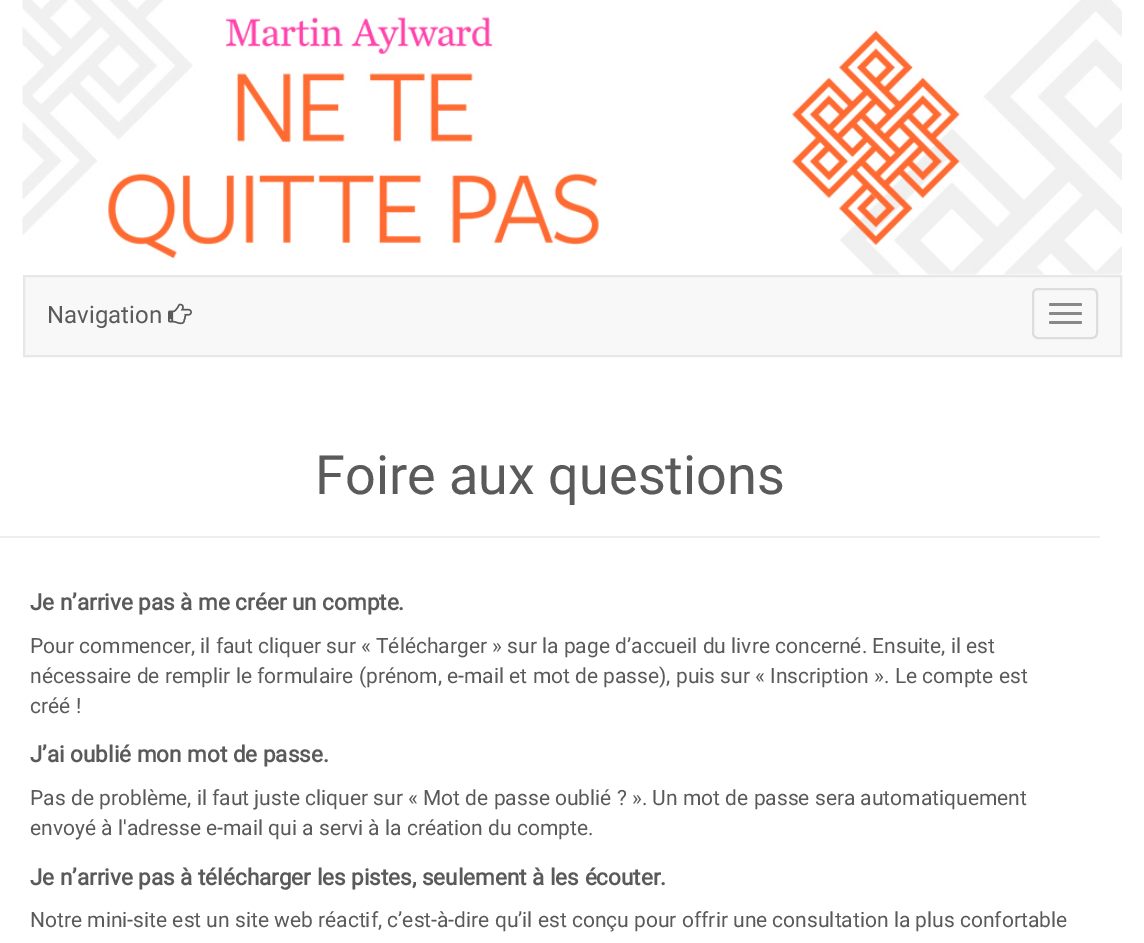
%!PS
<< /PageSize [1144 943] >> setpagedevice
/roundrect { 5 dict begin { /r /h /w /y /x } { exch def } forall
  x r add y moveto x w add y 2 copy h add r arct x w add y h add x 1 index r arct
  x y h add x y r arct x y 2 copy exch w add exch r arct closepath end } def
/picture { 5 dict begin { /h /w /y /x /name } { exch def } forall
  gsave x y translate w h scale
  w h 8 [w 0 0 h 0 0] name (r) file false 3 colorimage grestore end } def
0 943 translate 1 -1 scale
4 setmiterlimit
1 setgray
0 0 1144 943 rectfill
(img1.rgb) 22 0 1100 275 picture
0.973 setgray
newpath 24 276 moveto 1121 276 lineto 1121 356 lineto 24 356 lineto closepath gsave fill grestore
0.906 setgray
2 setlinewidth
stroke
/Roboto-Regular [24 0 0 -24 0 0] selectfont
0.353 setgray
47 323 moveto (Navigation) show
(img2.rgb) 168 303 24 22 picture
0.867 setgray
1033 289 64 49 5 roundrect stroke
0.533 setgray
1049 303 33 3 1.5 roundrect fill
1049 312 33 3 1.5 roundrect fill
1049 321 33 3 1.5 roundrect fill
0.933 setgray
0 536 1100 2 rectfill
/Roboto-Regular [54 0 0 -54 0 0] selectfont
0.353 setgray
315 494 moveto (Foire aux questions) show
/Roboto-Bold [22.5 0 0 -22.5 0 0] selectfont
30 610 moveto (Je n’arrive pas à me créer un compte.) show
/Roboto-Regular [21 0 0 -21 0 0] selectfont
30 653 moveto (Pour commencer, il faut cliquer sur « Télécharger » sur la page d’accueil du livre concerné. Ensuite, il est) show
30 683 moveto (nécessaire de remplir le formulaire \(prénom, e-mail et mot de passe\), puis sur « Inscription ». Le compte est) show
30 713 moveto (créé !) show
/Roboto-Bold [22.5 0 0 -22.5 0 0] selectfont
30 762 moveto (J’ai oublié mon mot de passe.) show
/Roboto-Regular [21 0 0 -21 0 0] selectfont
30 805 moveto (Pas de problème, il faut juste cliquer sur « Mot de passe oublié ? ». Un mot de passe sera automatiquement) show
30 835 moveto (envoyé à l'adresse e-mail qui a servi à la création du compte.) show
/Roboto-Bold [22.5 0 0 -22.5 0 0] selectfont
30 885 moveto (Je n’arrive pas à télécharger les pistes, seulement à les écouter.) show
/Roboto-Regular [21 0 0 -21 0 0] selectfont
30 927 moveto (Notre mini-site est un site web réactif, c’est-à-dire qu’il est conçu pour offrir une consultation la plus confortable) show
showpage
